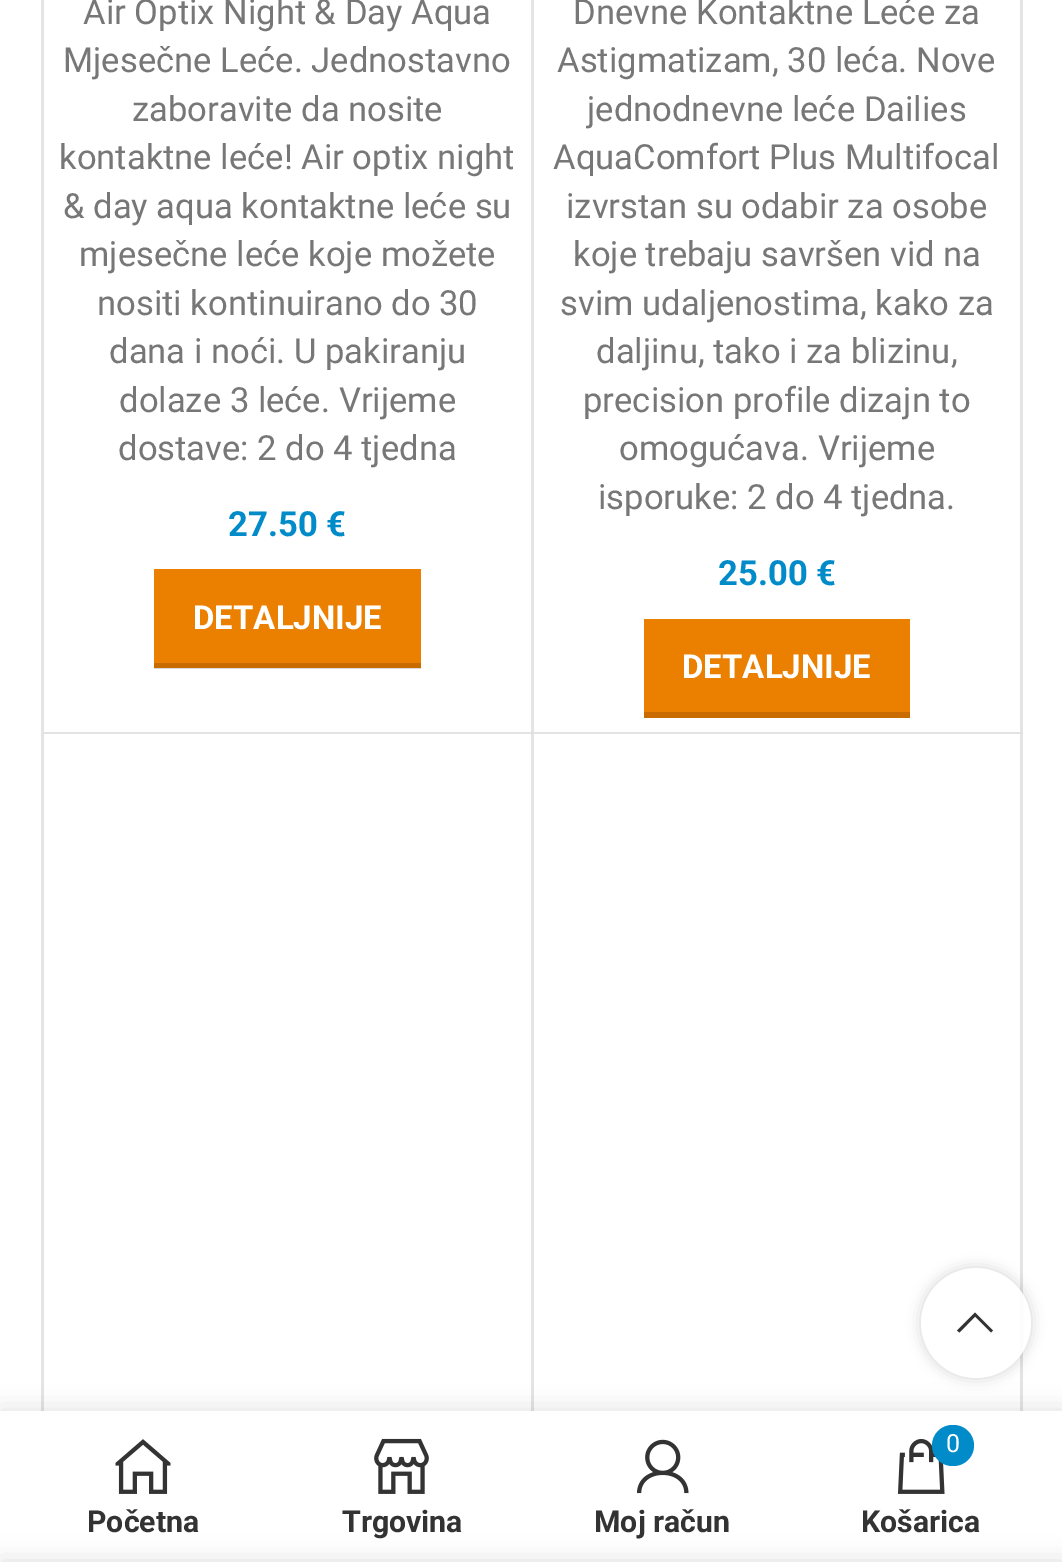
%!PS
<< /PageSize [1062 1562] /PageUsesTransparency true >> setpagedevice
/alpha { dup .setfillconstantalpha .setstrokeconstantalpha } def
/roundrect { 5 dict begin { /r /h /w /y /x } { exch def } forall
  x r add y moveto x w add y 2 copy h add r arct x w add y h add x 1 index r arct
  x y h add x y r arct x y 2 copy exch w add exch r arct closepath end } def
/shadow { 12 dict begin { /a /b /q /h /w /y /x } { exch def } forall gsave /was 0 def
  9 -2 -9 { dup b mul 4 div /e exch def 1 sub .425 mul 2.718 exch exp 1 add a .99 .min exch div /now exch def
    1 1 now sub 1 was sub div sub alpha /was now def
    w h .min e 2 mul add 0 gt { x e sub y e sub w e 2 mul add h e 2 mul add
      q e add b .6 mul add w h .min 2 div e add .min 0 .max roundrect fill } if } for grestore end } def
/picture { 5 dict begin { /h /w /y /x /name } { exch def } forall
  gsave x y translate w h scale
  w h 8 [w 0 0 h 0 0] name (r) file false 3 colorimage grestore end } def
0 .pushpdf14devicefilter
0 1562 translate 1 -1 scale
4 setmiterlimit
1 setgray
0 0 1062 1562 rectfill
0.851 setgray
154 668 267 1 rectfill
0.894 setgray
41 0 3 1411 rectfill
newpath 534 -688 moveto 534 734 lineto 531 732 lineto 531 -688 lineto closepath fill
0.11 alpha
0 setgray
newpath 534 734 moveto 44 734 lineto 44 732 lineto 531 732 lineto closepath fill
/Roboto-Regular [34.6 0 0 -34.6 0 0] selectfont
1 alpha
0.467 setgray
83 24 moveto (Air Optix Night & Day Aqua) show
63 72 moveto (Mjesečne Leće. Jednostavno) show
132 121 moveto (zaboravite da nosite) show
59 169 moveto (kontaktne leće! Air optix night) show
63 218 moveto (& day aqua kontaktne leće su) show
79 266 moveto (mjesečne leće koje možete) show
97 315 moveto (nositi kontinuirano do 30) show
109 363 moveto (dana i noći. U pakiranju) show
119 412 moveto (dolaze 3 leće. Vrijeme) show
118 460 moveto (dostave: 2 do 4 tjedna) show
/Roboto-Bold [34.6 0 0 -34.6 0 0] selectfont
0.004 0.545 0.784 setrgbcolor
228 536 moveto (27.50 €) show
0.922 0.498 0 setrgbcolor
154 569 267 94 rectfill
0.784 0.424 0 setrgbcolor
154 663 267 5 rectfill
/Roboto-Bold [33 0 0 -33 0 0] selectfont
1 setgray
193 629 moveto (DETALJNIJE) show
0.894 setgray
newpath 1023 -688 moveto 1023 734 lineto 1020 732 lineto 1020 -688 lineto closepath fill
0.11 alpha
0 setgray
newpath 1023 734 moveto 534 734 lineto 534 732 lineto 1020 732 lineto closepath fill
/Roboto-Regular [34.6 0 0 -34.6 0 0] selectfont
1 alpha
0.467 setgray
573 24 moveto (Dnevne Kontaktne Leće za) show
557 72 moveto (Astigmatizam, 30 leća. Nove) show
587 121 moveto (jednodnevne leće Dailies) show
553 169 moveto (AquaComfort Plus Multifocal) show
566 218 moveto (izvrstan su odabir za osobe) show
573 266 moveto (koje trebaju savršen vid na) show
560 315 moveto (svim udaljenostima, kako za) show
596 363 moveto (daljinu, tako i za blizinu,) show
583 412 moveto (precision profile dizajn to) show
619 460 moveto (omogućava. Vrijeme) show
598 509 moveto (isporuke: 2 do 4 tjedna.) show
/Roboto-Bold [34.6 0 0 -34.6 0 0] selectfont
0.004 0.545 0.784 setrgbcolor
718 585 moveto (25.00 €) show
0.922 0.498 0 setrgbcolor
644 619 266 93 rectfill
0.784 0.424 0 setrgbcolor
644 712 266 6 rectfill
/Roboto-Bold [33 0 0 -33 0 0] selectfont
1 setgray
682 678 moveto (DETALJNIJE) show
0.894 setgray
newpath 534 734 moveto 534 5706 lineto 531 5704 lineto 531 734 lineto closepath fill
newpath 1023 734 moveto 1023 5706 lineto 1020 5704 lineto 1020 734 lineto closepath fill
gsave
newpath 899 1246 moveto 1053 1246 lineto 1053 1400 lineto 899 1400 lineto closepath 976 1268 moveto 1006.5 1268 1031 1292.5 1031 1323 curveto 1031 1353.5 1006.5 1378 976 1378 curveto 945.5 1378 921 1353.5 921 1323 curveto 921 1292.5 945.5 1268 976 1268 curveto closepath eoclip newpath
0 setgray
921 1268 110 110 55 7 0.17 shadow
grestore
0.9 alpha
1 setgray
newpath 976 1323 55 0 360 arc closepath fill
1 alpha
0.2 setgray
newpath 991 1332.5 moveto 993 1330.5 lineto 975 1312.5 lineto 957 1330.5 lineto 959.5 1332.5 lineto 975 1316.5 lineto closepath fill
0 setgray
0 1411 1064 151 0 12.5 0.12 shadow
1 setgray
0 1411 1062 151 rectfill
(img1.rgb) 115 1439 56 55 picture
/Roboto-Bold [30.25 0 0 -30.25 0 0] selectfont
0.2 setgray
87 1532 moveto (Početna) show
(img2.rgb) 374 1438 55 56 picture
342 1532 moveto (Trgovina) show
(img3.rgb) 637 1439 52 55 picture
594 1532 moveto (Moj račun) show
(img4.rgb) 897 1438 48 56 picture
0.004 0.545 0.784 setrgbcolor
932 1425 42 41 20.5 roundrect fill
/Roboto-Regular [25 0 0 -25 0 0] selectfont
1 setgray
946 1452 moveto (0) show
/Roboto-Bold [30.25 0 0 -30.25 0 0] selectfont
0.2 setgray
861 1532 moveto (Košarica) show
0 setgray
0 1562 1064 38 0 12.5 0.14 shadow
.poppdf14devicefilter showpage
